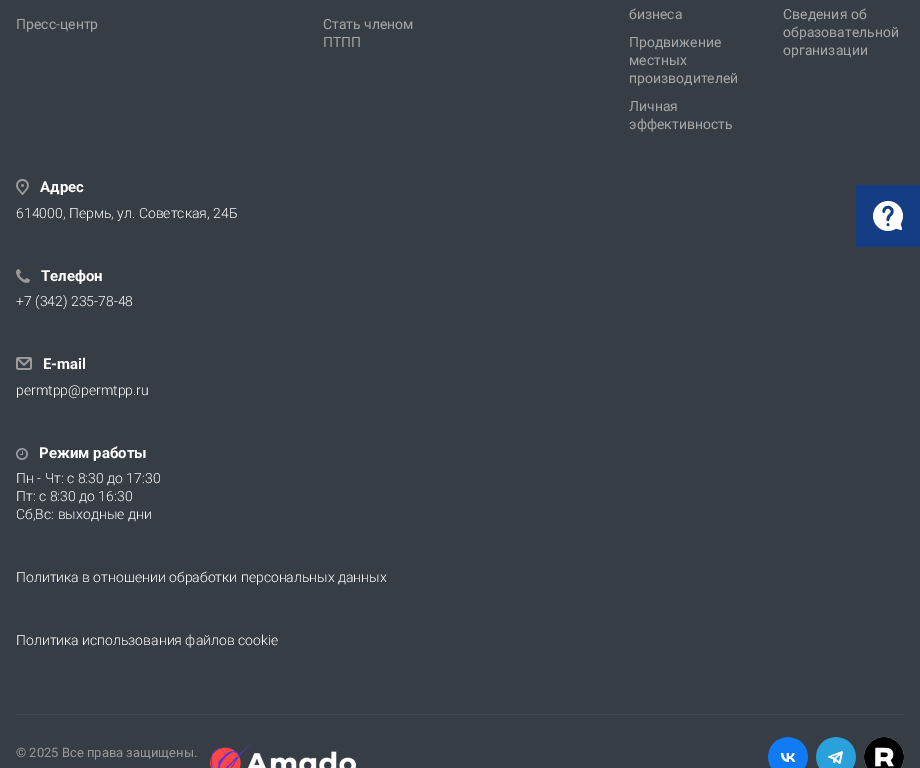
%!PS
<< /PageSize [920 768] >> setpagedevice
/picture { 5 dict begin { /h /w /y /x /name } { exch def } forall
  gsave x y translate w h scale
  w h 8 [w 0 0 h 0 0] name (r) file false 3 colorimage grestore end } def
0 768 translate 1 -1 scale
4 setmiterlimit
0.216 0.239 0.267 setrgbcolor
0 0 920 768 rectfill
/Roboto-Regular [14 0 0 -14 0 0] selectfont
0.655 setgray
16 29 moveto (Пресс-центр) show
323 29 moveto (Стать членом) show
323 47 moveto (ПТПП) show
629 19 moveto (бизнеса) show
629 47 moveto (Продвижение) show
629 65 moveto (местных) show
629 83 moveto (производителей) show
629 111 moveto (Личная) show
629 129 moveto (эффективность) show
783 19 moveto (Сведения об) show
783 37 moveto (образовательной) show
783 55 moveto (организации) show
(img1.rgb) 16 179 13 16 picture
/Roboto-Bold [15 0 0 -15 0 0] selectfont
1 setgray
40 192 moveto (Адрес) show
/Roboto-Light [14 0 0 -14 0 0] selectfont
16 218 moveto (614000, Пермь, ул. Советская, 24Б) show
(img2.rgb) 16 269 14 14 picture
/Roboto-Bold [15 0 0 -15 0 0] selectfont
41 281 moveto (Телефон) show
/Roboto-Light [14 0 0 -14 0 0] selectfont
16 306 moveto (+7 \(342\) 235-78-48) show
(img3.rgb) 16 357 16 13 picture
/Roboto-Bold [15 0 0 -15 0 0] selectfont
43 369 moveto (E-mail) show
/Roboto-Light [14 0 0 -14 0 0] selectfont
16 395 moveto (permtpp@permtpp.ru) show
(img4.rgb) 16 448 12 12 picture
/Roboto-Bold [15 0 0 -15 0 0] selectfont
39 458 moveto (Режим работы) show
/Roboto-Light [14 0 0 -14 0 0] selectfont
16 483 moveto (Пн - Чт: с 8:30 до 17:30) show
16 501 moveto (Пт: с 8:30 до 16:30) show
16 519 moveto (Сб,Вс: выходные дни) show
16 582 moveto (Политика в отношении обработки персональных данных) show
16 645 moveto (Политика использования файлов cookie) show
0.255 0.278 0.306 setrgbcolor
16 714 888 1 rectfill
/Roboto-Regular [13 0 0 -13 0 0] selectfont
0.6 setgray
16 757 moveto (© 2025 Все права защищены.) show
(img5.rgb) 210 742 146 26 picture
(img6.rgb) 768 737 40 31 picture
(img7.rgb) 816 737 40 31 picture
1 setgray
newpath 884 757 20 0 360 arc closepath fill
(img8.rgb) 864 737 40 31 picture
(img9.rgb) 856 185 64 62 picture
showpage
